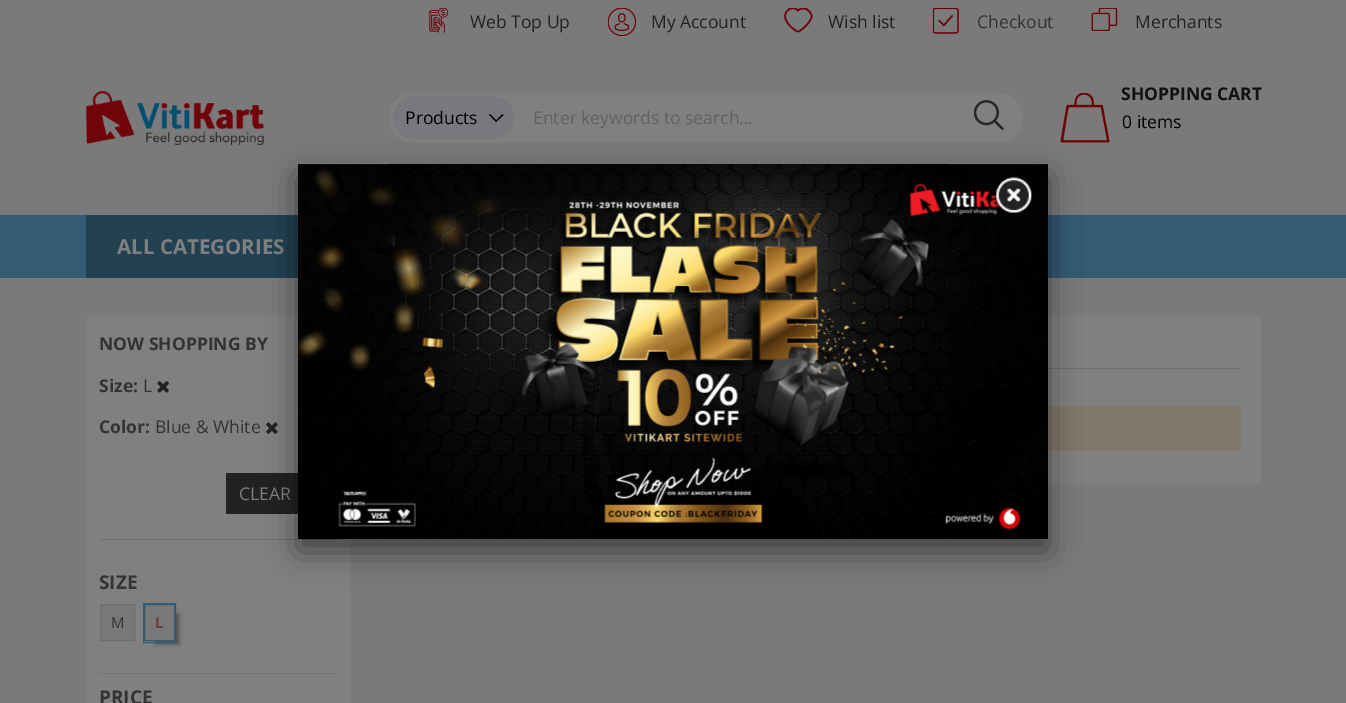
%!PS
<< /PageSize [1346 703] /PageUsesTransparency true >> setpagedevice
/alpha { dup .setfillconstantalpha .setstrokeconstantalpha } def
/roundrect { 5 dict begin { /r /h /w /y /x } { exch def } forall
  x r add y moveto x w add y 2 copy h add r arct x w add y h add x 1 index r arct
  x y h add x y r arct x y 2 copy exch w add exch r arct closepath end } def
/shadow { 12 dict begin { /a /b /q /h /w /y /x } { exch def } forall gsave /was 0 def
  9 -2 -9 { dup b mul 4 div /e exch def 1 sub .425 mul 2.718 exch exp 1 add a .99 .min exch div /now exch def
    1 1 now sub 1 was sub div sub alpha /was now def
    w h .min e 2 mul add 0 gt { x e sub y e sub w e 2 mul add h e 2 mul add
      q e add b .6 mul add w h .min 2 div e add .min 0 .max roundrect fill } if } for grestore end } def
/picture { 5 dict begin { /h /w /y /x /name } { exch def } forall
  gsave x y translate w h scale
  w h 8 [w 0 0 h 0 0] name (r) file false 3 colorimage grestore end } def
0 .pushpdf14devicefilter
0 703 translate 1 -1 scale
4 setmiterlimit
0.478 setgray
0 0 1346 703 rectfill
0.467 setgray
0 41 1346 1 rectfill
(img1.rgb) 429 8 20 25 picture
/OpenSans-Regular [17.5 0 0 -17.5 0 0] selectfont
0.133 setgray
470 28 moveto (Web Top Up) show
(img2.rgb) 608 8 28 28 picture
651 28 moveto (My Account) show
gsave
784 8 29 25 rectclip
0.42 0.008 0.031 setrgbcolor
1.5 setlinewidth
newpath 811.5 16.5 moveto 811.5 9.5 802.5 5.5 798 10.5 curveto 791.5 3 775 15 793.5 29 curveto 798.5 32.5 797.5 32.5 802.5 29 curveto 804.5 27 806.5 25.5 808 23.5 curveto 809.5 21.5 811.5 19 811.5 16.5 curveto closepath stroke
grestore
828 28 moveto (Wish list) show
(img3.rgb) 933 8 26 26 picture
0.2 setgray
977 28 moveto (Checkout) show
(img4.rgb) 1091 8 27 23 picture
0.133 setgray
1135 28 moveto (Merchants) show
(img5.rgb) 86 91 178 54 picture
0.502 setgray
389 93 634 50 25 roundrect fill
0.467 0.475 0.49 setrgbcolor
393 96 121 43 21.5 roundrect fill
0 setgray
405 124 moveto (Products) show
newpath 502.5 114 moveto 503.5 115 lineto 496 122 lineto 495.5 121 lineto closepath fill
newpath 490 114 moveto 497 121 lineto 496 122 lineto 489 115 lineto closepath fill
(img6.rgb) 974 100 30 30 picture
0.38 setgray
533 124 moveto (Enter keywords to search...) show
(img7.rgb) 1060 93 50 50 picture
/OpenSans-Bold [17.5 0 0 -17.5 0 0] selectfont
0.067 setgray
1121 100 moveto (SHOPPING CART) show
/OpenSans-Regular [17.5 0 0 -17.5 0 0] selectfont
0 setgray
1122 128 moveto (0 items) show
0.204 0.353 0.455 setrgbcolor
0 215 1346 63 rectfill
0.133 0.255 0.322 setrgbcolor
86 215 212 63 rectfill
/OpenSans-Bold [20.5 0 0 -20.5 0 0] selectfont
0.502 setgray
117 254 moveto (ALL CATEGORIES) show
86 315 265 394 6 roundrect fill
/OpenSans-Bold [17.5 0 0 -17.5 0 0] selectfont
0.2 setgray
99 350 moveto (NOW SHOPPING BY) show
99 392 moveto (Size:) show
/OpenSans-Regular [17.5 0 0 -17.5 0 0] selectfont
143 392 moveto (L) show
(img8.rgb) 157 381 12 12 picture
/OpenSans-Bold [17.5 0 0 -17.5 0 0] selectfont
99 433 moveto (Color:) show
/OpenSans-Regular [17.5 0 0 -17.5 0 0] selectfont
155 433 moveto (Blue & White) show
(img9.rgb) 266 422 12 12 picture
0.435 setgray
100 539 238 1 rectfill
0.133 setgray
226 473 72 41 rectfill
0.502 setgray
239 500 moveto (CLEAR) show
/OpenSans-Bold [19 0 0 -19 0 0] selectfont
0.2 setgray
99 589 moveto (SIZE) show
0.471 setgray
newpath 100.5 604.5 moveto 134.5 604.5 lineto 134.5 640.5 lineto 100.5 640.5 lineto closepath gsave fill grestore
0.427 setgray
stroke
/OpenSans-Regular [15 0 0 -15 0 0] selectfont
0.2 setgray
111 628 moveto (M) show
0 setgray
155 614 24 30 0 2 0.38 shadow
0.471 setgray
newpath 144.5 604.5 moveto 174.5 604.5 lineto 174.5 640.5 lineto 144.5 640.5 lineto closepath gsave fill grestore
0.204 0.353 0.455 setrgbcolor
stroke
143.5 603.5 32 39 rectstroke
/OpenSans-Bold [15 0 0 -15 0 0] selectfont
0.451 0.239 0.22 setrgbcolor
155 628 moveto (L) show
0.451 setgray
100 673 238 1 rectfill
/OpenSans-Bold [19 0 0 -19 0 0] selectfont
0.2 setgray
99 704 moveto (PRICE) show
0.502 setgray
370 315 891 169 6 roundrect fill
0.435 setgray
1048 368 193 1 rectfill
0.498 0.471 0.42 setrgbcolor
1048 406 193 45 rectfill
0 setgray
298 176 750 375 0 15.5 0.5 shadow
(img10.rgb) 298 164 750 375 picture
(img11.rgb) 992 177 40 36 picture
.poppdf14devicefilter showpage
